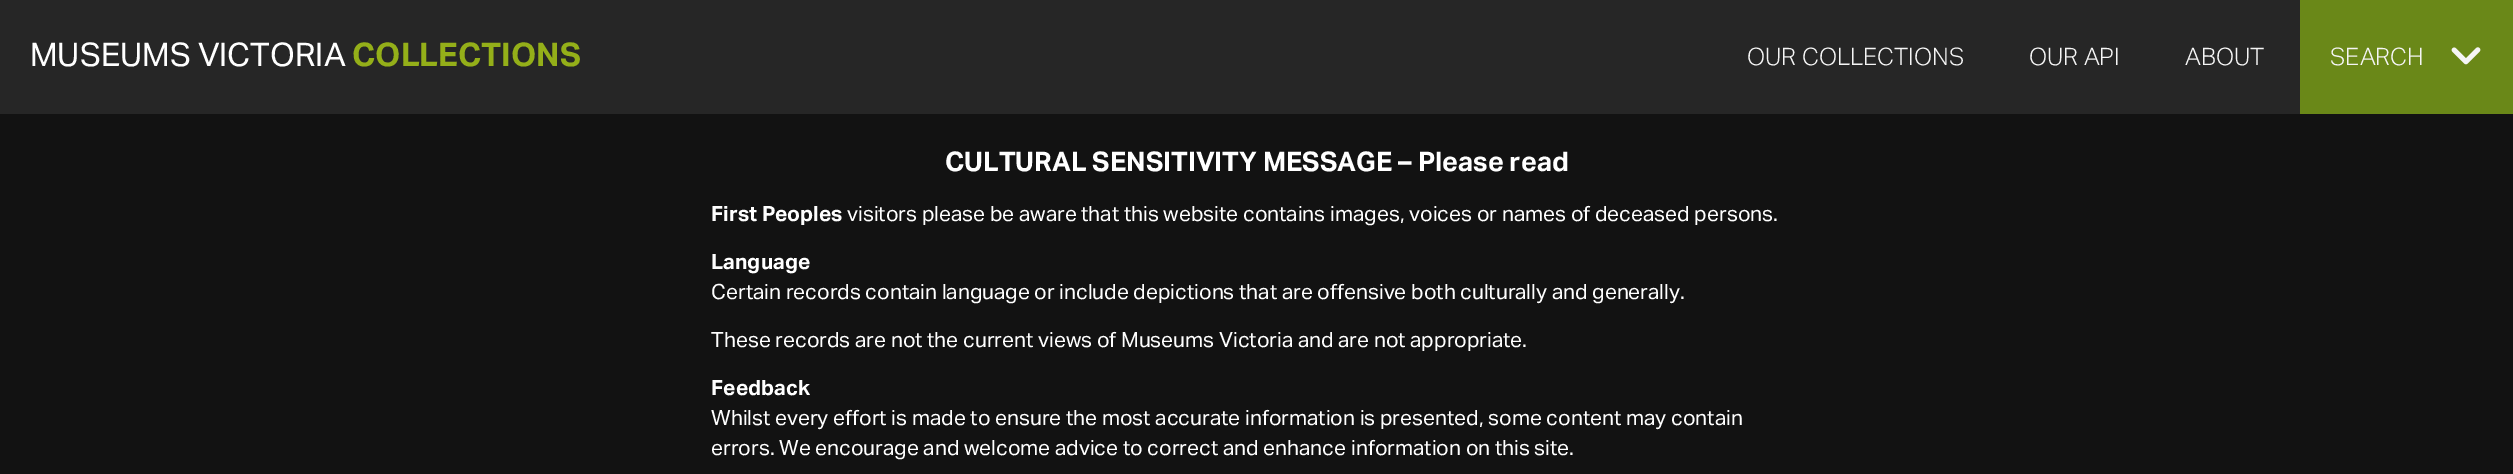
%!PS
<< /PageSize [2513 474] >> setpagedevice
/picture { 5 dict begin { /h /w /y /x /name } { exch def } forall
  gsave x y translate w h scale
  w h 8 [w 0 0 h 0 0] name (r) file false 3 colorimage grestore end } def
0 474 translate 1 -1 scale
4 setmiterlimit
0.149 setgray
0 0 2513 474 rectfill
/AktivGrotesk-Regular [32.5 0 0 -32.5 0 0] selectfont
1 setgray
30 66 moveto (MUSEUMS VICTORIA) show
/AktivGrotesk-Bold [32.5 0 0 -32.5 0 0] selectfont
0.58 0.686 0.098 setrgbcolor
352 66 moveto (COLLECTIONS) show
/AktivGrotesk-Light [24 0 0 -24 0 0] selectfont
0.961 setgray
1747 65 moveto (OUR COLLECTIONS) show
2029 65 moveto (OUR API) show
2185 65 moveto (ABOUT) show
0.416 0.533 0.094 setrgbcolor
2300 0 213 114 rectfill
0.961 setgray
2330 65 moveto (SEARCH) show
(img1.rgb) 2451 47 30 18 picture
0.071 setgray
0 114 2513 360 rectfill
/AktivGrotesk-Bold [27 0 0 -27 0 0] selectfont
1 setgray
945 171 moveto (CULTURAL SENSITIVITY MESSAGE – Please read) show
/AktivGrotesk-Bold [21 0 0 -21 0 0] selectfont
711 221 moveto (First Peoples) show
/AktivGrotesk-Regular [21 0 0 -21 0 0] selectfont
847 221 moveto (visitors please be aware that this website contains images, voices or names of deceased persons.) show
/AktivGrotesk-Bold [21 0 0 -21 0 0] selectfont
711 269 moveto (Language) show
/AktivGrotesk-Regular [21 0 0 -21 0 0] selectfont
711 299 moveto (Certain records contain language or include depictions that are offensive both culturally and generally.) show
711 347 moveto (These records are not the current views of Museums Victoria and are not appropriate.) show
/AktivGrotesk-Bold [21 0 0 -21 0 0] selectfont
711 395 moveto (Feedback) show
/AktivGrotesk-Regular [21 0 0 -21 0 0] selectfont
711 425 moveto (Whilst every effort is made to ensure the most accurate information is presented, some content may contain) show
711 455 moveto (errors. We encourage and welcome advice to correct and enhance information on this site.) show
showpage
